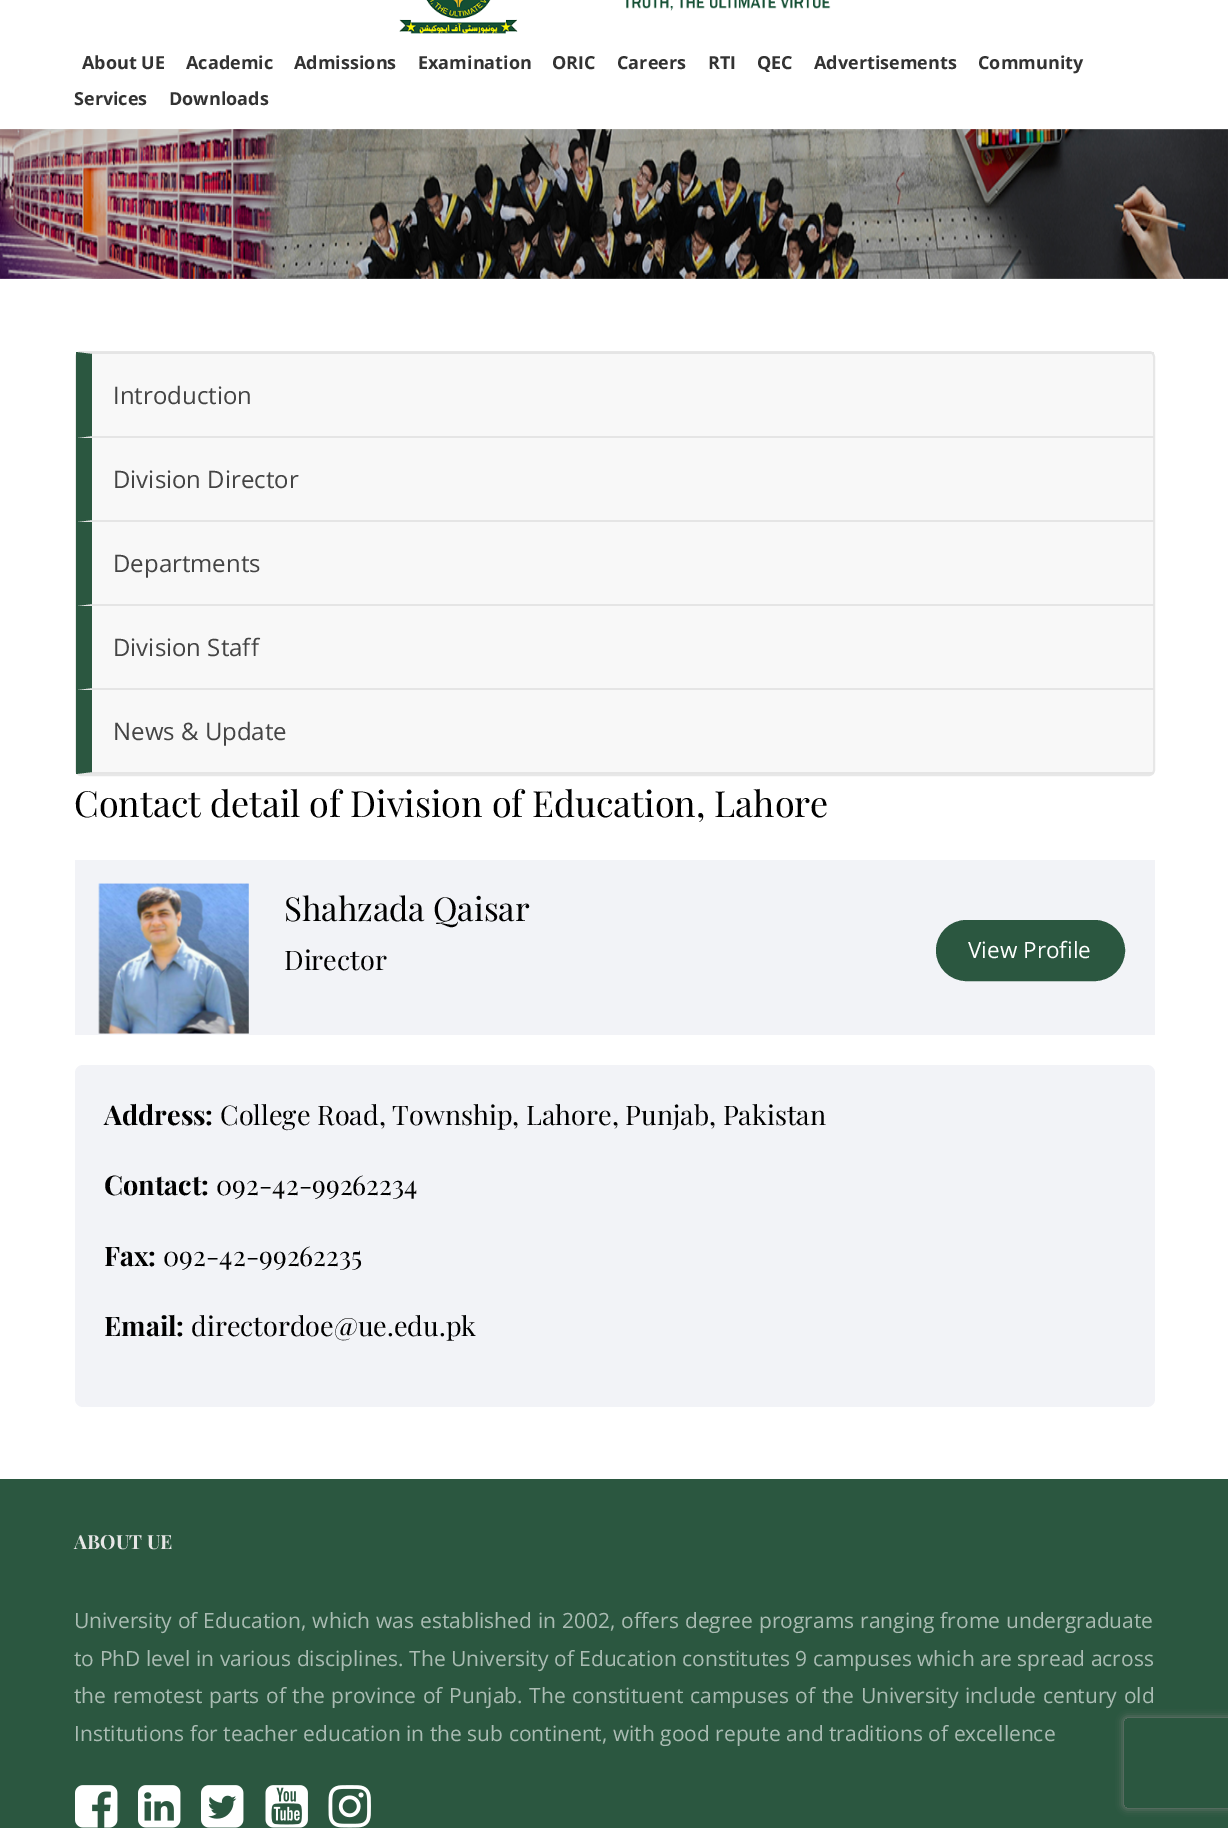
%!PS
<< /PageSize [1228 1828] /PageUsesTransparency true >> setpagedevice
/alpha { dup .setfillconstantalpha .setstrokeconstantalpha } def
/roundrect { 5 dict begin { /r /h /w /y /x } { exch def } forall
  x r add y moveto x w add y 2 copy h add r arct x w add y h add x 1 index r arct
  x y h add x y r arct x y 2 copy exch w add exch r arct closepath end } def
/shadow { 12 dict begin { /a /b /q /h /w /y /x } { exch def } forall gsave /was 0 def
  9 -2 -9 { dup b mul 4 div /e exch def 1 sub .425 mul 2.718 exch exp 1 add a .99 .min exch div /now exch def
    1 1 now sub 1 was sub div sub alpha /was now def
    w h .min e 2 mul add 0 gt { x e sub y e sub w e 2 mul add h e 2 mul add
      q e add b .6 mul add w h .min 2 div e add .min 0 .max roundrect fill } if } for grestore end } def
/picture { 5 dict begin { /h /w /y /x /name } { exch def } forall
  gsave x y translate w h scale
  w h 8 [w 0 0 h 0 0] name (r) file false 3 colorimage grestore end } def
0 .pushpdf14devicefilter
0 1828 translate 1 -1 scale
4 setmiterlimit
1 setgray
0 0 1228 1828 rectfill
(img1.rgb) 399 0 432 34 picture
/OpenSans-Bold [18 0 0 -18 0 0] selectfont
0.2 setgray
82 69 moveto (About UE) show
186 69 moveto (Academic) show
294 69 moveto (Admissions) show
418 69 moveto (Examination) show
552 69 moveto (ORIC) show
617 69 moveto (Careers) show
708 69 moveto (RTI) show
757 69 moveto (QEC) show
814 69 moveto (Advertisements) show
978 69 moveto (Community) show
74 105 moveto (Services) show
169 105 moveto (Downloads) show
(img2.rgb) 0 129 1228 150 picture
0.973 setgray
76 352 1078 423 5 roundrect gsave fill grestore
0.906 setgray
2 setlinewidth
stroke
0.898 setgray
newpath 76 352 moveto 1154 352 lineto 1154 354 lineto 92 354 lineto closepath fill
newpath 1154 438 moveto 76 438 lineto 92 436 lineto 1154 436 lineto closepath fill
0.169 0.341 0.251 setrgbcolor
newpath 76 438 moveto 76 352 lineto 92 354 lineto 92 436 lineto closepath fill
/OpenSans-Regular [24 0 0 -24 0 0] selectfont
0.267 setgray
113 404 moveto (Introduction) show
0.898 setgray
newpath 1154 522 moveto 76 522 lineto 92 520 lineto 1154 520 lineto closepath fill
0.169 0.341 0.251 setrgbcolor
newpath 76 522 moveto 76 438 lineto 92 438 lineto 92 520 lineto closepath fill
0.267 setgray
113 488 moveto (Division Director) show
0.898 setgray
newpath 1154 606 moveto 76 606 lineto 92 604 lineto 1154 604 lineto closepath fill
0.169 0.341 0.251 setrgbcolor
newpath 76 606 moveto 76 522 lineto 92 522 lineto 92 604 lineto closepath fill
0.267 setgray
113 572 moveto (Departments) show
0.898 setgray
newpath 1154 690 moveto 76 690 lineto 92 688 lineto 1154 688 lineto closepath fill
0.169 0.341 0.251 setrgbcolor
newpath 76 690 moveto 76 606 lineto 92 606 lineto 92 688 lineto closepath fill
0.267 setgray
113 656 moveto (Division Staff) show
0.898 setgray
newpath 1154 774 moveto 76 774 lineto 92 772 lineto 1154 772 lineto closepath fill
0.169 0.341 0.251 setrgbcolor
newpath 76 774 moveto 76 690 lineto 92 690 lineto 92 772 lineto closepath fill
0.267 setgray
113 740 moveto (News & Update) show
/PlayfairDisplay-Regular [36 0 0 -36 0 0] selectfont
0 setgray
74 817 moveto (Contact detail of Division of Education, Lahore) show
0.949 0.953 0.969 setrgbcolor
75 860 1080 175 rectfill
(img3.rgb) 98 883 151 151 picture
/PlayfairDisplay-Regular [33 0 0 -33 0 0] selectfont
0 setgray
284 921 moveto (Shahzada Qaisar) show
/PlayfairDisplay-Regular [27 0 0 -27 0 0] selectfont
284 970 moveto (Director) show
0.169 0.341 0.251 setrgbcolor
937.5 921.5 186 58 29 roundrect gsave fill grestore
3 setlinewidth
stroke
/OpenSans-Regular [22.5 0 0 -22.5 0 0] selectfont
1 setgray
968 958 moveto (View Profile) show
0.949 0.953 0.969 setrgbcolor
75 1065 1080 342 8 roundrect fill
/PlayfairDisplay-Bold [27 0 0 -27 0 0] selectfont
0 setgray
104 1125 moveto (Address:) show
/PlayfairDisplay-Regular [27 0 0 -27 0 0] selectfont
220 1125 moveto (College Road, Township, Lahore, Punjab, Pakistan) show
/PlayfairDisplay-Bold [27 0 0 -27 0 0] selectfont
104 1195 moveto (Contact:) show
/PlayfairDisplay-Regular [27 0 0 -27 0 0] selectfont
216 1195 moveto (092-42-99262234) show
/PlayfairDisplay-Bold [27 0 0 -27 0 0] selectfont
104 1266 moveto (Fax:) show
/PlayfairDisplay-Regular [27 0 0 -27 0 0] selectfont
163 1266 moveto (092-42-99262235) show
/PlayfairDisplay-Bold [27 0 0 -27 0 0] selectfont
104 1336 moveto (Email:) show
/PlayfairDisplay-Regular [27 0 0 -27 0 0] selectfont
191 1336 moveto (directordoe@ue.edu.pk) show
0.169 0.341 0.251 setrgbcolor
0 1479 1228 349 rectfill
/PlayfairDisplay-Bold [19.5 0 0 -19.5 0 0] selectfont
0.902 setgray
74 1549 moveto (ABOUT UE) show
/OpenSans-Regular [21 0 0 -21 0 0] selectfont
0.667 0.737 0.702 setrgbcolor
74 1628 moveto 0.6 0 32 (University of Education, which was established in 2002, offers degree programs ranging frome undergraduate) widthshow
74 1666 moveto (to PhD level in various disciplines. The University of Education constitutes 9 campuses which are spread across) show
74 1703 moveto 1.25 0 32 (the remotest parts of the province of Punjab. The constituent campuses of the University include century old) widthshow
74 1741 moveto (Institutions for teacher education in the sub continent, with good repute and traditions of excellence) show
(img4.rgb) 75 1785 43 43 picture
(img5.rgb) 138 1785 43 43 picture
(img6.rgb) 201 1785 43 43 picture
(img7.rgb) 265 1785 43 43 picture
(img8.rgb) 328 1785 43 43 picture
gsave
newpath 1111 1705 moveto 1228 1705 lineto 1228 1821 lineto 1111 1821 lineto closepath 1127 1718 moveto 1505 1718 lineto 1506.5 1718 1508 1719.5 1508 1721 curveto 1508 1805 lineto 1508 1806.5 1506.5 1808 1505 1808 curveto 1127 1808 lineto 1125.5 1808 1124 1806.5 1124 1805 curveto 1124 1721 lineto 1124 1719.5 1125.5 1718 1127 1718 curveto closepath eoclip newpath
0.502 setgray
1124 1718 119 90 3 4 1 shadow
grestore
.poppdf14devicefilter showpage
